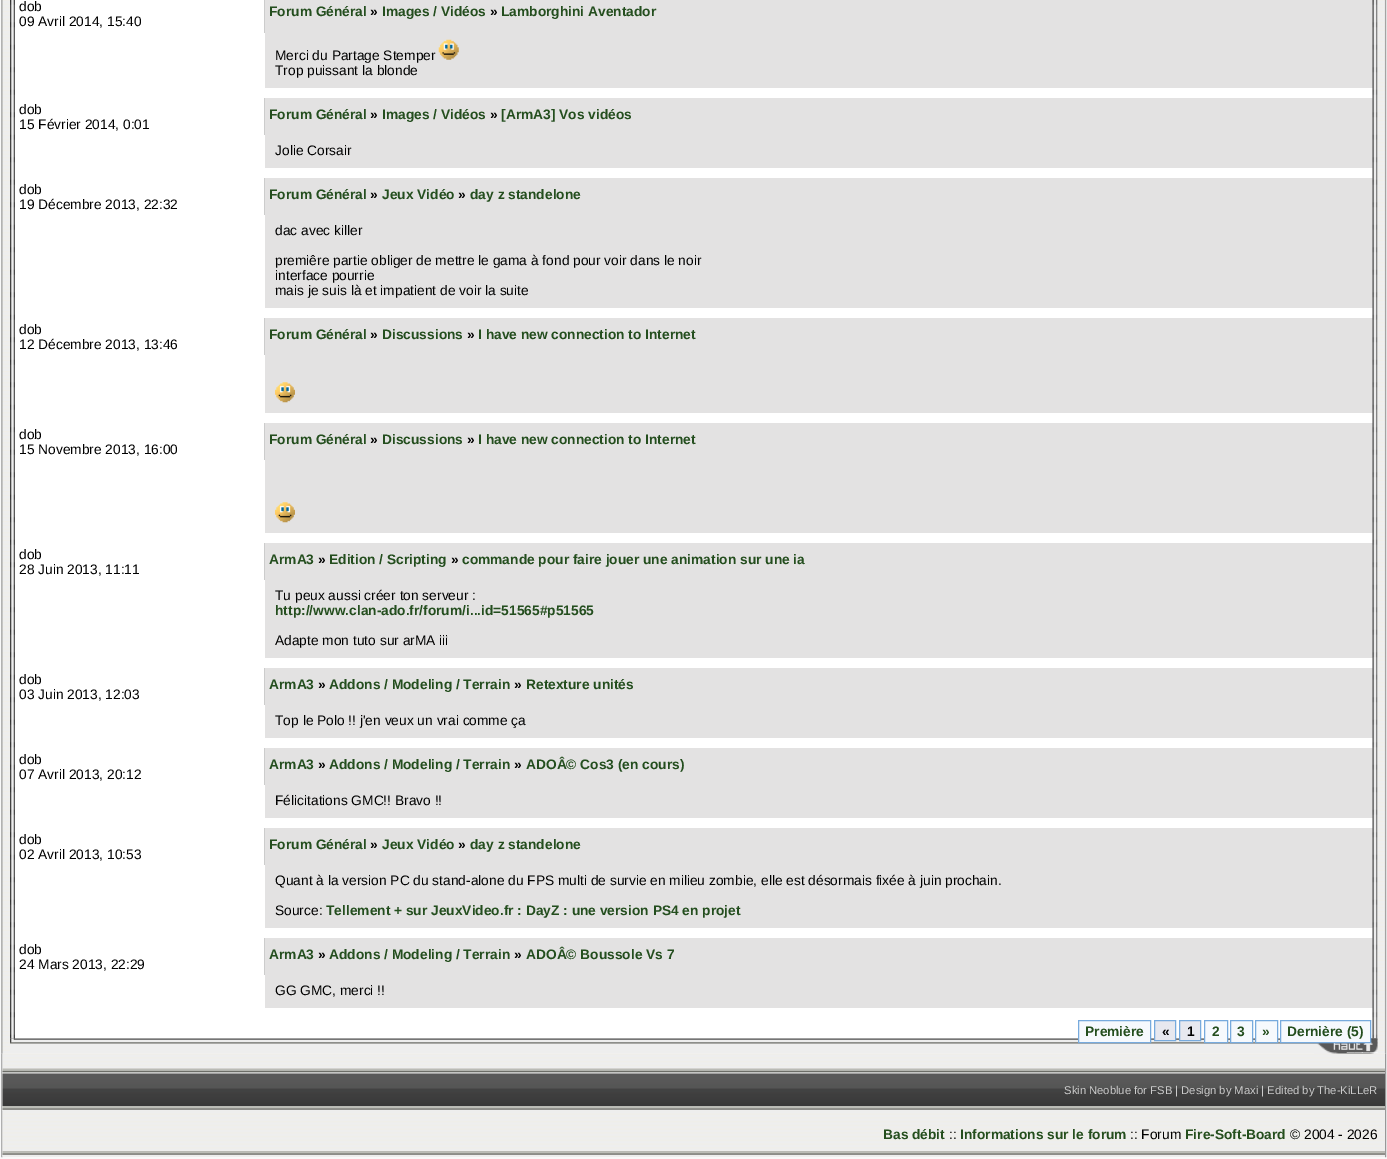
%!PS
<< /PageSize [1387 1159] >> setpagedevice
/picture { 5 dict begin { /h /w /y /x /name } { exch def } forall
  gsave x y translate w h scale
  w h 8 [w 0 0 h 0 0] name (r) file false 3 colorimage grestore end } def
0 1159 translate 1 -1 scale
4 setmiterlimit
0.976 setgray
0 0 1387 1159 rectfill
(img1.rgb) 1 0 9 1054 picture
(img2.rgb) 10 0 1368 1054 picture
(img3.rgb) 10 0 5 1039 picture
1 setgray
15 0 1358 1039 rectfill
0.8 setgray
264 0 1 33 rectfill
/LiberationSans-Regular [13.75 0 0 -13.75 0 0] selectfont
0 setgray
19 11 moveto (dob) show
19 26 moveto (09 Avril 2014, 15:40) show
0.89 0.886 0.886 setrgbcolor
265 0 1108 88 rectfill
/LiberationSans-Bold [13.75 0 0 -13.75 0 0] selectfont
0.141 0.306 0.118 setrgbcolor
269 16 moveto (Forum Général) show
0 setgray
370 16 moveto (») show
0.141 0.306 0.118 setrgbcolor
382 16 moveto (Images / Vidéos) show
0 setgray
490 16 moveto (») show
0.141 0.306 0.118 setrgbcolor
501 16 moveto (Lamborghini Aventador) show
/LiberationSans-Regular [13.75 0 0 -13.75 0 0] selectfont
0 setgray
275 60 moveto (Merci du Partage Stemper) show
(img4.rgb) 438 39 21 21 picture
275 75 moveto (Trop puissant la blonde) show
0.8 setgray
264 98 1 37 rectfill
0 setgray
19 114 moveto (dob) show
19 129 moveto (15 Février 2014, 0:01) show
0.89 0.886 0.886 setrgbcolor
265 98 1108 70 rectfill
/LiberationSans-Bold [13.75 0 0 -13.75 0 0] selectfont
0.141 0.306 0.118 setrgbcolor
269 119 moveto (Forum Général) show
0 setgray
370 119 moveto (») show
0.141 0.306 0.118 setrgbcolor
382 119 moveto (Images / Vidéos) show
0 setgray
490 119 moveto (») show
0.141 0.306 0.118 setrgbcolor
501 119 moveto ([ArmA3] Vos vidéos) show
/LiberationSans-Regular [13.75 0 0 -13.75 0 0] selectfont
0 setgray
275 155 moveto (Jolie Corsair) show
0.8 setgray
264 178 1 37 rectfill
0 setgray
19 194 moveto (dob) show
19 209 moveto (19 Décembre 2013, 22:32) show
0.89 0.886 0.886 setrgbcolor
265 178 1108 130 rectfill
/LiberationSans-Bold [13.75 0 0 -13.75 0 0] selectfont
0.141 0.306 0.118 setrgbcolor
269 199 moveto (Forum Général) show
0 setgray
370 199 moveto (») show
0.141 0.306 0.118 setrgbcolor
382 199 moveto (Jeux Vidéo) show
0 setgray
458 199 moveto (») show
0.141 0.306 0.118 setrgbcolor
470 199 moveto (day z standelone) show
/LiberationSans-Regular [13.75 0 0 -13.75 0 0] selectfont
0 setgray
275 235 moveto (dac avec killer) show
275 265 moveto (premiêre partie obliger de mettre le gama à fond pour voir dans le noir) show
275 280 moveto (interface pourrie) show
275 295 moveto (mais je suis là et impatient de voir la suite) show
0.8 setgray
264 318 1 37 rectfill
0 setgray
19 334 moveto (dob) show
19 349 moveto (12 Décembre 2013, 13:46) show
0.89 0.886 0.886 setrgbcolor
265 318 1108 95 rectfill
/LiberationSans-Bold [13.75 0 0 -13.75 0 0] selectfont
0.141 0.306 0.118 setrgbcolor
269 339 moveto (Forum Général) show
0 setgray
370 339 moveto (») show
0.141 0.306 0.118 setrgbcolor
382 339 moveto (Discussions) show
0 setgray
467 339 moveto (») show
0.141 0.306 0.118 setrgbcolor
478 339 moveto (I have new connection to Internet) show
(img5.rgb) 275 382 20 21 picture
0.8 setgray
264 423 1 37 rectfill
/LiberationSans-Regular [13.75 0 0 -13.75 0 0] selectfont
0 setgray
19 439 moveto (dob) show
19 454 moveto (15 Novembre 2013, 16:00) show
0.89 0.886 0.886 setrgbcolor
265 423 1108 110 rectfill
/LiberationSans-Bold [13.75 0 0 -13.75 0 0] selectfont
0.141 0.306 0.118 setrgbcolor
269 444 moveto (Forum Général) show
0 setgray
370 444 moveto (») show
0.141 0.306 0.118 setrgbcolor
382 444 moveto (Discussions) show
0 setgray
467 444 moveto (») show
0.141 0.306 0.118 setrgbcolor
478 444 moveto (I have new connection to Internet) show
(img5.rgb) 275 502 20 21 picture
0.8 setgray
264 543 1 37 rectfill
/LiberationSans-Regular [13.75 0 0 -13.75 0 0] selectfont
0 setgray
19 559 moveto (dob) show
19 574 moveto (28 Juin 2013, 11:11) show
0.89 0.886 0.886 setrgbcolor
265 543 1108 115 rectfill
/LiberationSans-Bold [13.75 0 0 -13.75 0 0] selectfont
0.141 0.306 0.118 setrgbcolor
269 564 moveto (ArmA3) show
0 setgray
318 564 moveto (») show
0.141 0.306 0.118 setrgbcolor
329 564 moveto (Edition / Scripting) show
0 setgray
451 564 moveto (») show
0.141 0.306 0.118 setrgbcolor
462 564 moveto (commande pour faire jouer une animation sur une ia) show
/LiberationSans-Regular [13.75 0 0 -13.75 0 0] selectfont
0 setgray
275 600 moveto (Tu peux aussi créer ton serveur :) show
/LiberationSans-Bold [13.75 0 0 -13.75 0 0] selectfont
0.141 0.306 0.118 setrgbcolor
275 615 moveto (http://www.clan-ado.fr/forum/i...id=51565#p51565) show
/LiberationSans-Regular [13.75 0 0 -13.75 0 0] selectfont
0 setgray
275 645 moveto (Adapte mon tuto sur arMA iii) show
0.8 setgray
264 668 1 37 rectfill
0 setgray
19 684 moveto (dob) show
19 699 moveto (03 Juin 2013, 12:03) show
0.89 0.886 0.886 setrgbcolor
265 668 1108 70 rectfill
/LiberationSans-Bold [13.75 0 0 -13.75 0 0] selectfont
0.141 0.306 0.118 setrgbcolor
269 689 moveto (ArmA3) show
0 setgray
318 689 moveto (») show
0.141 0.306 0.118 setrgbcolor
329 689 moveto (Addons / Modeling / Terrain) show
0 setgray
514 689 moveto (») show
0.141 0.306 0.118 setrgbcolor
526 689 moveto (Retexture unités) show
/LiberationSans-Regular [13.75 0 0 -13.75 0 0] selectfont
0 setgray
275 725 moveto (Top le Polo !! j'en veux un vrai comme ça) show
0.8 setgray
264 748 1 37 rectfill
0 setgray
19 764 moveto (dob) show
19 779 moveto (07 Avril 2013, 20:12) show
0.89 0.886 0.886 setrgbcolor
265 748 1108 70 rectfill
/LiberationSans-Bold [13.75 0 0 -13.75 0 0] selectfont
0.141 0.306 0.118 setrgbcolor
269 769 moveto (ArmA3) show
0 setgray
318 769 moveto (») show
0.141 0.306 0.118 setrgbcolor
329 769 moveto (Addons / Modeling / Terrain) show
0 setgray
514 769 moveto (») show
0.141 0.306 0.118 setrgbcolor
526 769 moveto (ADOÂ© Cos3 \(en cours\)) show
/LiberationSans-Regular [13.75 0 0 -13.75 0 0] selectfont
0 setgray
275 805 moveto (Félicitations GMC!! Bravo !!) show
0.8 setgray
264 828 1 37 rectfill
0 setgray
19 844 moveto (dob) show
19 859 moveto (02 Avril 2013, 10:53) show
0.89 0.886 0.886 setrgbcolor
265 828 1108 100 rectfill
/LiberationSans-Bold [13.75 0 0 -13.75 0 0] selectfont
0.141 0.306 0.118 setrgbcolor
269 849 moveto (Forum Général) show
0 setgray
370 849 moveto (») show
0.141 0.306 0.118 setrgbcolor
382 849 moveto (Jeux Vidéo) show
0 setgray
458 849 moveto (») show
0.141 0.306 0.118 setrgbcolor
470 849 moveto (day z standelone) show
/LiberationSans-Regular [13.75 0 0 -13.75 0 0] selectfont
0 setgray
275 885 moveto (Quant à la version PC du stand-alone du FPS multi de survie en milieu zombie, elle est désormais fixée à juin prochain.) show
275 915 moveto (Source:) show
/LiberationSans-Bold [13.75 0 0 -13.75 0 0] selectfont
0.141 0.306 0.118 setrgbcolor
326 915 moveto (Tellement + sur JeuxVideo.fr : DayZ : une version PS4 en projet) show
0.8 setgray
264 938 1 37 rectfill
/LiberationSans-Regular [13.75 0 0 -13.75 0 0] selectfont
0 setgray
19 954 moveto (dob) show
19 969 moveto (24 Mars 2013, 22:29) show
0.89 0.886 0.886 setrgbcolor
265 938 1108 70 rectfill
/LiberationSans-Bold [13.75 0 0 -13.75 0 0] selectfont
0.141 0.306 0.118 setrgbcolor
269 959 moveto (ArmA3) show
0 setgray
318 959 moveto (») show
0.141 0.306 0.118 setrgbcolor
329 959 moveto (Addons / Modeling / Terrain) show
0 setgray
514 959 moveto (») show
0.141 0.306 0.118 setrgbcolor
526 959 moveto (ADOÂ© Boussole Vs 7) show
/LiberationSans-Regular [13.75 0 0 -13.75 0 0] selectfont
0 setgray
275 995 moveto (GG GMC, merci !!) show
(img6.rgb) 1372 0 6 1039 picture
(img7.rgb) 10 1038 1368 13 picture
0.965 0.976 0.992 setrgbcolor
newpath 1078.5 1020.5 moveto 1150.5 1020.5 lineto 1150.5 1042.5 lineto 1078.5 1042.5 lineto closepath gsave fill grestore
0.467 0.667 0.867 setrgbcolor
stroke
/LiberationSans-Bold [13.75 0 0 -13.75 0 0] selectfont
0.141 0.306 0.118 setrgbcolor
1085 1036 moveto (Première) show
0.906 0.91 0.937 setrgbcolor
newpath 1154.5 1020.5 moveto 1175.5 1020.5 lineto 1175.5 1040.5 lineto 1154.5 1040.5 lineto closepath gsave fill grestore
0.467 0.667 0.867 setrgbcolor
stroke
0 setgray
1162 1036 moveto («) show
0.906 0.91 0.937 setrgbcolor
newpath 1179.5 1020.5 moveto 1200.5 1020.5 lineto 1200.5 1040.5 lineto 1179.5 1040.5 lineto closepath gsave fill grestore
0.467 0.667 0.867 setrgbcolor
stroke
0 setgray
1187 1036 moveto (1) show
0.965 0.976 0.992 setrgbcolor
newpath 1204.5 1020.5 moveto 1227.5 1020.5 lineto 1227.5 1042.5 lineto 1204.5 1042.5 lineto closepath gsave fill grestore
0.467 0.667 0.867 setrgbcolor
stroke
0.141 0.306 0.118 setrgbcolor
1212 1036 moveto (2) show
0.965 0.976 0.992 setrgbcolor
newpath 1230.5 1020.5 moveto 1252.5 1020.5 lineto 1252.5 1042.5 lineto 1230.5 1042.5 lineto closepath gsave fill grestore
0.467 0.667 0.867 setrgbcolor
stroke
0.141 0.306 0.118 setrgbcolor
1237 1036 moveto (3) show
0.965 0.976 0.992 setrgbcolor
newpath 1255.5 1020.5 moveto 1277.5 1020.5 lineto 1277.5 1042.5 lineto 1255.5 1042.5 lineto closepath gsave fill grestore
0.467 0.667 0.867 setrgbcolor
stroke
0.141 0.306 0.118 setrgbcolor
1262 1036 moveto (») show
(img10.rgb) 1377 0 10 1054 picture
(img11.rgb) 1 1053 2 105 picture
(img12.rgb) 2 1053 1383 104 picture
(img9.rgb) 1313 1038 65 16 picture
0.965 0.976 0.992 setrgbcolor
newpath 1280.5 1020.5 moveto 1370.5 1020.5 lineto 1370.5 1042.5 lineto 1280.5 1042.5 lineto closepath gsave fill grestore
0.467 0.667 0.867 setrgbcolor
stroke
0.141 0.306 0.118 setrgbcolor
1287 1036 moveto (Dernière \(5\)) show
(img8.rgb) 10 1038 5 5 picture
1 setgray
1347 1051 moveto (____) show
(img13.rgb) 2 1068 1383 6 picture
(img14.rgb) 2 1073 1383 33 picture
/LiberationSans-Regular [11.25 0 0 -11.25 0 0] selectfont
0.8 setgray
1064 1094 moveto (Skin Neoblue for FSB | Design by Maxi | Edited by The-KiLLeR) show
(img15.rgb) 2 1106 1383 5 picture
/LiberationSans-Bold [13.75 0 0 -13.75 0 0] selectfont
0.141 0.306 0.118 setrgbcolor
883 1139 moveto (Bas débit) show
/LiberationSans-Regular [13.75 0 0 -13.75 0 0] selectfont
0 setgray
949 1139 moveto (::) show
/LiberationSans-Bold [13.75 0 0 -13.75 0 0] selectfont
0.141 0.306 0.118 setrgbcolor
960 1139 moveto (Informations sur le forum) show
/LiberationSans-Regular [13.75 0 0 -13.75 0 0] selectfont
0 setgray
1130 1139 moveto (:: Forum) show
/LiberationSans-Bold [13.75 0 0 -13.75 0 0] selectfont
0.141 0.306 0.118 setrgbcolor
1185 1139 moveto (Fire-Soft-Board) show
/LiberationSans-Regular [13.75 0 0 -13.75 0 0] selectfont
0 setgray
1290 1139 moveto (© 2004 - 2026) show
(img15.rgb) 2 1151 1383 5 picture
(img16.rgb) 1385 1053 2 105 picture
showpage
